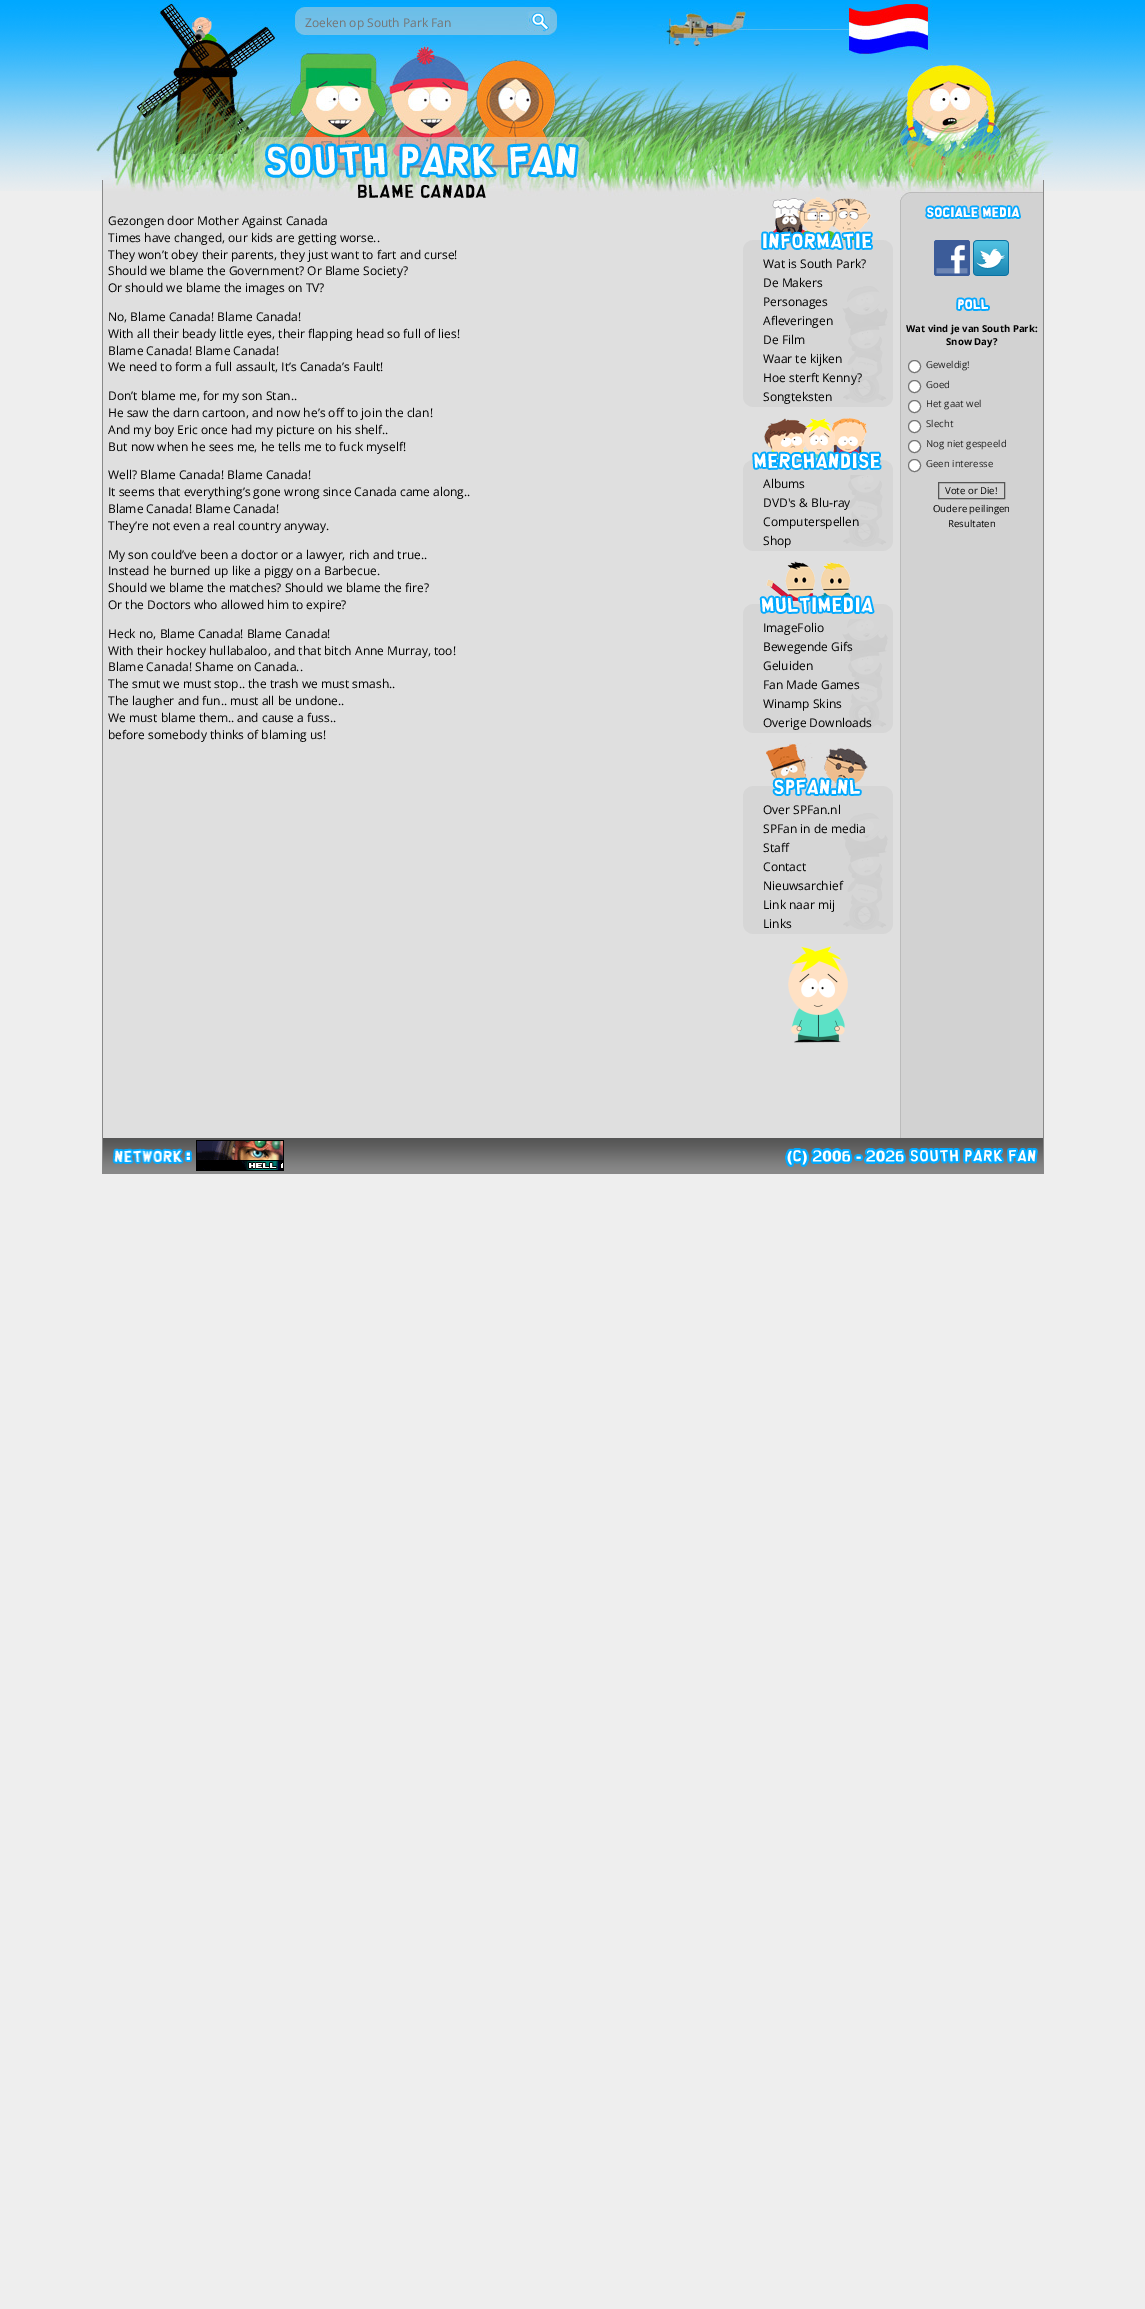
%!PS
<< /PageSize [1145 2309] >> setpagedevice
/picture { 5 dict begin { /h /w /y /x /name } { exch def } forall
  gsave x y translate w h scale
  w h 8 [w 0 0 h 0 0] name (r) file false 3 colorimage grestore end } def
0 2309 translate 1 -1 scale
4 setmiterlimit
0.933 setgray
0 0 1145 2309 rectfill
(img1.rgb) 0 0 1145 191 picture
(img2.rgb) 93 0 960 180 picture
/OpenSans-Regular [12 0 0 -12 0 0] selectfont
0.459 setgray
305 27 moveto (Zoeken op South Park Fan) show
(img3.rgb) 530 6 20 24 picture
(img4.rgb) 103 200 940 938 picture
0.533 setgray
1043 180 1 994 rectfill
102 180 1 958 rectfill
(img5.rgb) 103 180 940 20 picture
/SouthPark-Regular [16.75 0 0 -16.75 0 0] selectfont
0 setgray
357 198 moveto (Blame Canada) show
/OpenSans-Regular [12 0 0 -12 0 0] selectfont
108 225 moveto (Gezongen door Mother Against Canada) show
108 242 moveto (Times have changed, our kids are getting worse..) show
108 259 moveto (They won’t obey their parents, they just want to fart and curse!) show
108 275 moveto (Should we blame the Government? Or Blame Society?) show
108 292 moveto (Or should we blame the images on TV?) show
108 321 moveto (No, Blame Canada! Blame Canada!) show
108 338 moveto (With all their beady little eyes, their flapping head so full of lies!) show
108 355 moveto (Blame Canada! Blame Canada!) show
108 371 moveto (We need to form a full assault, It’s Canada’s Fault!) show
108 400 moveto (Don’t blame me, for my son Stan..) show
108 417 moveto (He saw the darn cartoon, and now he’s off to join the clan!) show
108 434 moveto (And my boy Eric once had my picture on his shelf..) show
108 451 moveto (But now when he sees me, he tells me to fuck myself!) show
108 479 moveto (Well? Blame Canada! Blame Canada!) show
108 496 moveto (It seems that everything’s gone wrong since Canada came along..) show
108 513 moveto (Blame Canada! Blame Canada!) show
108 530 moveto (They’re not even a real country anyway.) show
108 559 moveto (My son could’ve been a doctor or a lawyer, rich and true..) show
108 575 moveto (Instead he burned up like a piggy on a Barbecue.) show
108 592 moveto (Should we blame the matches? Should we blame the fire?) show
108 609 moveto (Or the Doctors who allowed him to expire?) show
108 638 moveto (Heck no, Blame Canada! Blame Canada!) show
108 655 moveto (With their hockey hullabaloo, and that bitch Anne Murray, too!) show
108 671 moveto (Blame Canada! Shame on Canada..) show
108 688 moveto (The smut we must stop.. the trash we must smash..) show
108 705 moveto (The laugher and fun.. must all be undone..) show
108 722 moveto (We must blame them.. and cause a fuss..) show
108 739 moveto (before somebody thinks of blaming us!) show
(img6.rgb) 743 197 150 58 picture
0.839 setgray
743 255 150 31 rectfill
(img7.rgb) 743 286 150 121 picture
0 setgray
763 268 moveto (Wat is South Park?) show
763 287 moveto (De Makers) show
763 306 moveto (Personages) show
763 325 moveto (Afleveringen) show
763 344 moveto (De Film) show
763 363 moveto (Waar te kijken) show
763 382 moveto (Hoe sterft Kenny?) show
763 401 moveto (Songteksten) show
(img8.rgb) 743 418 150 57 picture
(img9.rgb) 743 475 150 76 picture
763 488 moveto (Albums) show
763 507 moveto (DVD's & Blu-ray) show
763 526 moveto (Computerspellen) show
763 545 moveto (Shop) show
(img10.rgb) 743 561 150 58 picture
(img11.rgb) 743 619 150 114 picture
763 632 moveto (ImageFolio) show
763 651 moveto (Bewegende Gifs) show
763 670 moveto (Geluiden) show
763 689 moveto (Fan Made Games) show
763 708 moveto (Winamp Skins) show
763 727 moveto (Overige Downloads) show
(img12.rgb) 743 743 150 58 picture
0.839 setgray
743 801 150 12 rectfill
(img7.rgb) 743 813 150 121 picture
0 setgray
763 814 moveto (Over SPFan.nl) show
763 833 moveto (SPFan in de media) show
763 852 moveto (Staff) show
763 871 moveto (Contact) show
763 890 moveto (Nieuwsarchief) show
763 909 moveto (Link naar mij) show
763 928 moveto (Links) show
(img13.rgb) 788 946 60 97 picture
(img14.rgb) 925 205 96 14 picture
(img15.rgb) 934 240 36 36 picture
(img16.rgb) 973 240 36 36 picture
(img17.rgb) 956 297 34 14 picture
/OpenSans-Bold [9.6 0 0 -9.6 0 0] selectfont
906 332 moveto (Wat vind je van South Park:) show
946 345 moveto (Snow Day?) show
1 setgray
newpath 914.5 366.5 6 0 360 arc closepath gsave fill grestore
0.463 setgray
stroke
/OpenSans-Regular [9.6 0 0 -9.6 0 0] selectfont
0.133 setgray
926 368 moveto (Geweldig!) show
1 setgray
newpath 914.5 386.5 6 0 360 arc closepath gsave fill grestore
0.463 setgray
stroke
0.133 setgray
926 388 moveto (Goed) show
1 setgray
newpath 914.5 406.5 6 0 360 arc closepath gsave fill grestore
0.463 setgray
stroke
0.133 setgray
926 407 moveto (Het gaat wel) show
1 setgray
newpath 914.5 426.5 6 0 360 arc closepath gsave fill grestore
0.463 setgray
stroke
0.133 setgray
926 427 moveto (Slecht) show
1 setgray
newpath 914.5 446.5 6 0 360 arc closepath gsave fill grestore
0.463 setgray
stroke
0.133 setgray
926 447 moveto (Nog niet gespeeld) show
1 setgray
newpath 914.5 465.5 6 0 360 arc closepath gsave fill grestore
0.463 setgray
stroke
0.133 setgray
926 467 moveto (Geen interesse) show
0.333 setgray
938.5 482.5 66 16 rectstroke
0 setgray
945 494 moveto (Vote or Die!) show
933 512 moveto (Oudere peilingen) show
948 527 moveto (Resultaten) show
(img18.rgb) 103 1138 940 35 picture
0.533 setgray
102 1173 942 1 rectfill
102 1138 1 36 rectfill
(img19.rgb) 112 1148 80 16 picture
(img20.rgb) 196 1140 88 31 picture
(img21.rgb) 785 1148 253 19 picture
showpage
